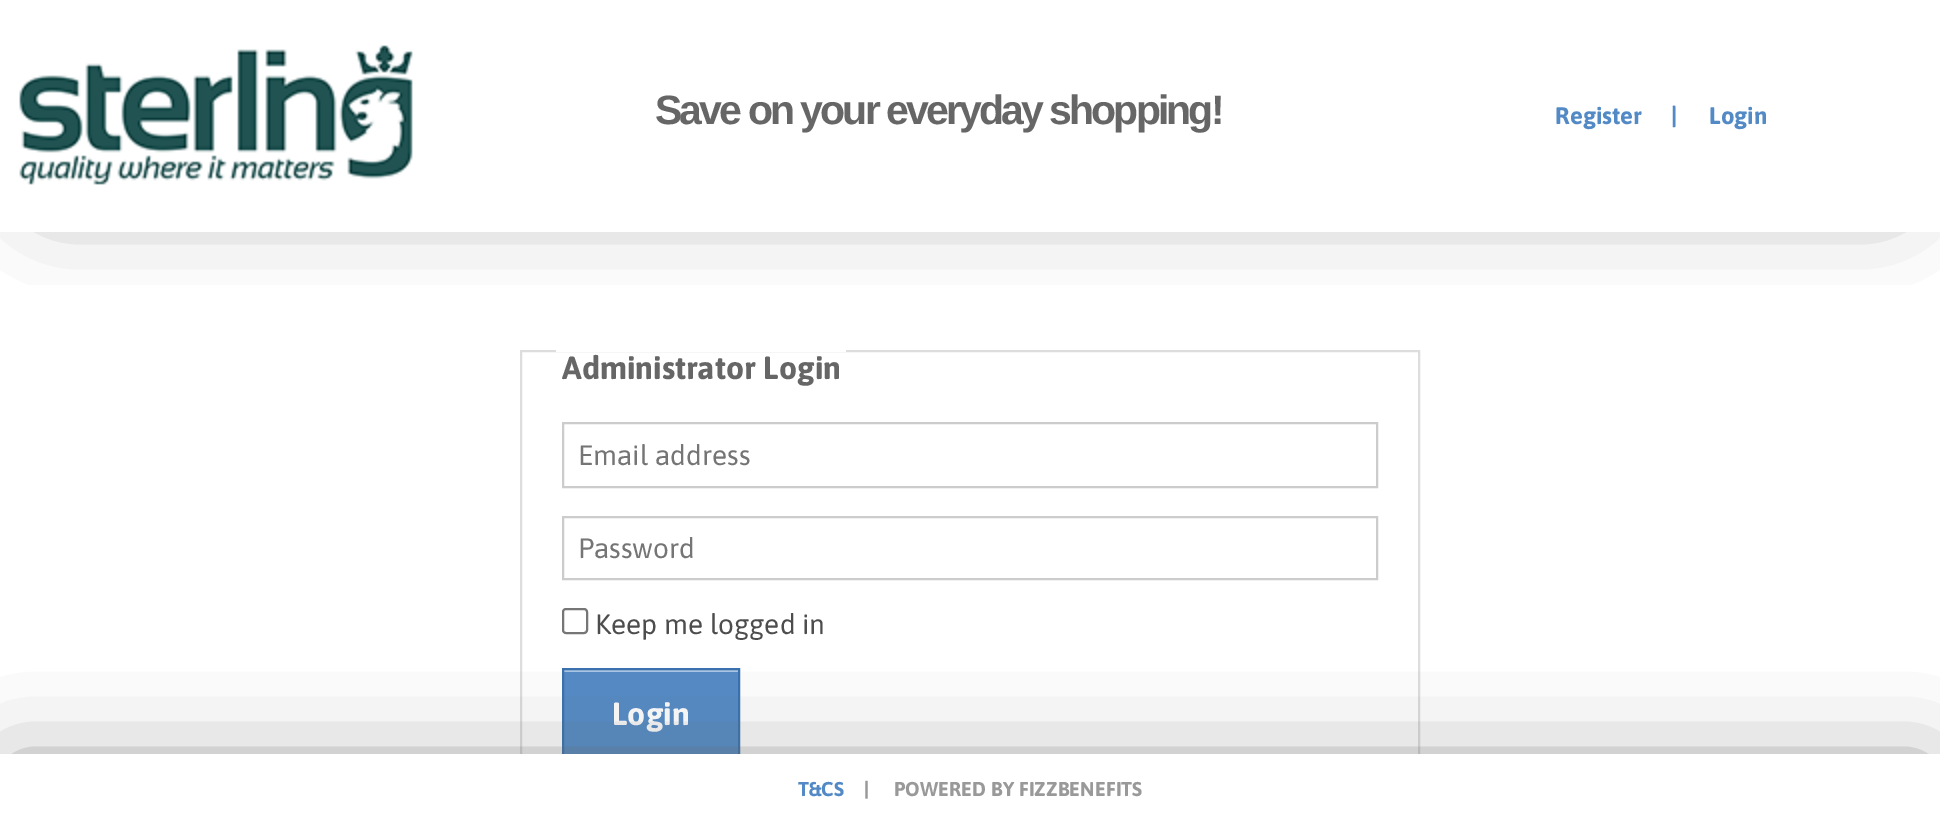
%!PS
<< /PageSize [1940 826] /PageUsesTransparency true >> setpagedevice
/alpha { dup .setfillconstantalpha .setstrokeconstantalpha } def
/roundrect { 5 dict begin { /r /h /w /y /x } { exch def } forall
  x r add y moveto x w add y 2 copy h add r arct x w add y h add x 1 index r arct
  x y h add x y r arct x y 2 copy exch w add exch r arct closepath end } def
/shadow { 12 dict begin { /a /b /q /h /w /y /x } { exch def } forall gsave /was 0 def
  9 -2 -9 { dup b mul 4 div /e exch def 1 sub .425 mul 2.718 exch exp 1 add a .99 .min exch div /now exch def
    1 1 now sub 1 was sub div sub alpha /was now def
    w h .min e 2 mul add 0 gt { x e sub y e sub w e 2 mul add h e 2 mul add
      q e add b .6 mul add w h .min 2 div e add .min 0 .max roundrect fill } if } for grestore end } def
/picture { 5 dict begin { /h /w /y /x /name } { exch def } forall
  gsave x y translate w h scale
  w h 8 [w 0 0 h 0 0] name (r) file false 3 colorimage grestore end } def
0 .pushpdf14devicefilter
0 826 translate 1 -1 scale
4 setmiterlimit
1 setgray
0 0 1940 826 rectfill
gsave
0 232 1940 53 rectclip
0.4 setgray
50 50 1840 132 0 50 1 shadow
grestore
(img1.rgb) 19 45 394 140 picture
/LiberationSans-Bold [41 0 0 -41 0 0] selectfont
0.4 setgray
655 124 moveto -2.9 0 (Save on your everyday shopping!) ashow
/Asap-Bold [24 0 0 -24 0 0] selectfont
0.325 0.541 0.776 setrgbcolor
1555 124 moveto (Register) show
1671 124 moveto (|) show
1709 124 moveto (Login) show
0.867 setgray
2 setlinewidth
521 351 898 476 rectstroke
1 setgray
556 350 290 2 rectfill
/Asap-Bold [32 0 0 -32 0 0] selectfont
0.4 setgray
562 379 moveto (Administrator Login) show
0.8 setgray
563 423 814 64 rectstroke
/Asap-Regular [28 0 0 -28 0 0] selectfont
0.459 setgray
578 465 moveto (Email address) show
0.8 setgray
563 517 814 62 rectstroke
0.459 setgray
578 558 moveto (Password) show
0.463 setgray
563 609 24 24 3 roundrect stroke
0.302 setgray
595 634 moveto (Keep me logged in) show
0.325 0.541 0.776 setrgbcolor
564 672 174 82 rectfill
0.663 0.773 0.89 setrgbcolor
564 670 174 2 rectfill
0.224 0.439 0.678 setrgbcolor
563 669 176 88 rectstroke
/Asap-Bold [32 0 0 -32 0 0] selectfont
1 setgray
612 725 moveto (Login) show
0.4 setgray
30 784 1880 12 0 50 1 shadow
1 setgray
0 754 1940 72 rectfill
/Asap-Bold [20 0 0 -20 0 0] selectfont
0.325 0.541 0.776 setrgbcolor
798 796 moveto (T&CS) show
0.6 setgray
864 796 moveto (|) show
894 796 moveto (POWERED BY FIZZBENEFITS) show
.poppdf14devicefilter showpage
